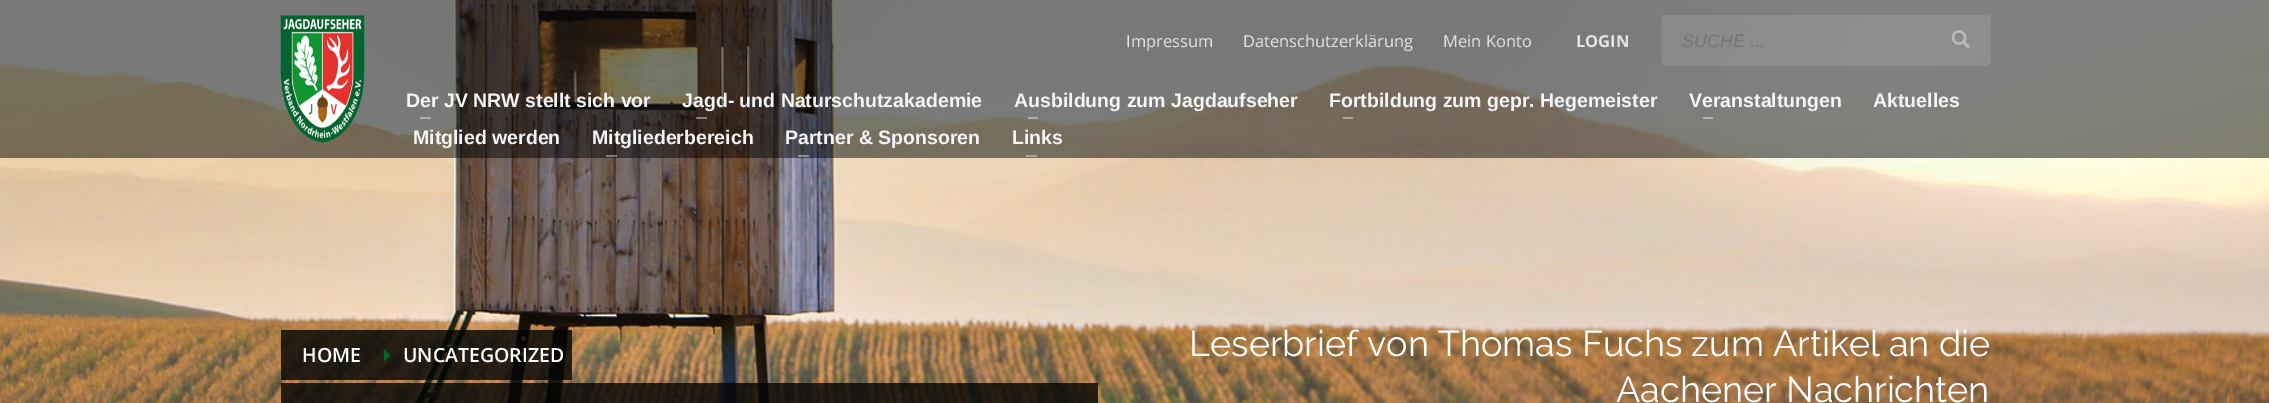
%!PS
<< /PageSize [2269 403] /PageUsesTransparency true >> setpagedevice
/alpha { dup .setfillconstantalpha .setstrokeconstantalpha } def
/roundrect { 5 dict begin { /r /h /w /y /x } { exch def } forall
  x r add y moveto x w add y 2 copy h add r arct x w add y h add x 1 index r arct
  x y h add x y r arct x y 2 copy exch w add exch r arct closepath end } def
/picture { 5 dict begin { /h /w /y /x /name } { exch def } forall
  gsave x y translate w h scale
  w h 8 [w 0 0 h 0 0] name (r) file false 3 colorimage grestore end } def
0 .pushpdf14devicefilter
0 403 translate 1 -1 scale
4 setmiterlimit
1 setgray
0 0 2269 403 rectfill
(img3.rgb) 0 0 2269 403 picture
0.5 alpha
0.012 setgray
0 0 2269 158 rectfill
1 alpha
(img1.rgb) 280 15 85 128 picture
/OpenSans-Regular [16.5 0 0 -16.5 0 0] selectfont
0.894 setgray
1126 47 moveto (Impressum) show
1243 47 moveto (Datenschutzerklärung) show
1443 47 moveto (Mein Konto) show
/OpenSans-Bold [16.5 0 0 -16.5 0 0] selectfont
1576 47 moveto (LOGIN) show
0.1 alpha
1 setgray
1661 15 330 51 5 roundrect fill
/LiberationSans-Italic [18 0 0 -18 0 0] selectfont
1 alpha
0.463 setgray
1682 47 moveto (SUCHE ...) show
(img2.rgb) 1951 30 19 18 picture
/LiberationSans-Bold [19.5 0 0 -19.5 0 0] selectfont
0.961 setgray
406 107 moveto (Der JV NRW stellt sich vor) show
0.686 setgray
420 117 11 2 rectfill
0.961 setgray
682 107 moveto (Jagd- und Naturschutzakademie) show
0.4 alpha
1 setgray
696 117 11 2 rectfill
1 alpha
0.961 setgray
1014 107 moveto (Ausbildung zum Jagdaufseher) show
0.4 alpha
1 setgray
1028 117 10 2 rectfill
1 alpha
0.961 setgray
1329 107 moveto (Fortbildung zum gepr. Hegemeister) show
0.675 0.647 0.612 setrgbcolor
1343 117 10 2 rectfill
0.961 setgray
1689 107 moveto (Veranstaltungen) show
0.698 0.694 0.69 setrgbcolor
1703 117 10 2 rectfill
0.961 setgray
1873 107 moveto (Aktuelles) show
413 144 moveto (Mitglied werden) show
592 144 moveto (Mitgliederbereich) show
0.4 alpha
1 setgray
606 155 11 2 rectfill
1 alpha
0.961 setgray
785 144 moveto (Partner & Sponsoren) show
0.4 alpha
1 setgray
798 155 11 2 rectfill
1 alpha
0.961 setgray
1012 144 moveto (Links) show
0.682 0.655 0.62 setrgbcolor
1026 155 11 2 rectfill
0.8 alpha
0.012 setgray
281 330 88 50 rectfill
/OpenSans-SemiBold [19.5 0 0 -19.5 0 0] selectfont
1 alpha
1 setgray
302 362 moveto (HOME) show
0.8 alpha
0.012 setgray
369 330 203 50 rectfill
1 alpha
0.016 0.396 0.192 setrgbcolor
newpath 384 361.5 moveto 384 349.5 lineto 390 355.5 lineto closepath fill
1 setgray
403 362 moveto (UNCATEGORIZED) show
0.8 alpha
0.012 setgray
281 383 817 20 rectfill
1 alpha
0.016 0.396 0.192 setrgbcolor
newpath 295.5 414 moveto 295.5 402 lineto 301.5 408 lineto closepath fill
/Raleway-Regular [36 0 0 -36 0 0] selectfont
1 setgray
1189 356 moveto (Leserbrief von Thomas Fuchs zum Artikel an die) show
1616 402 moveto (Aachener Nachrichten) show
.poppdf14devicefilter showpage
